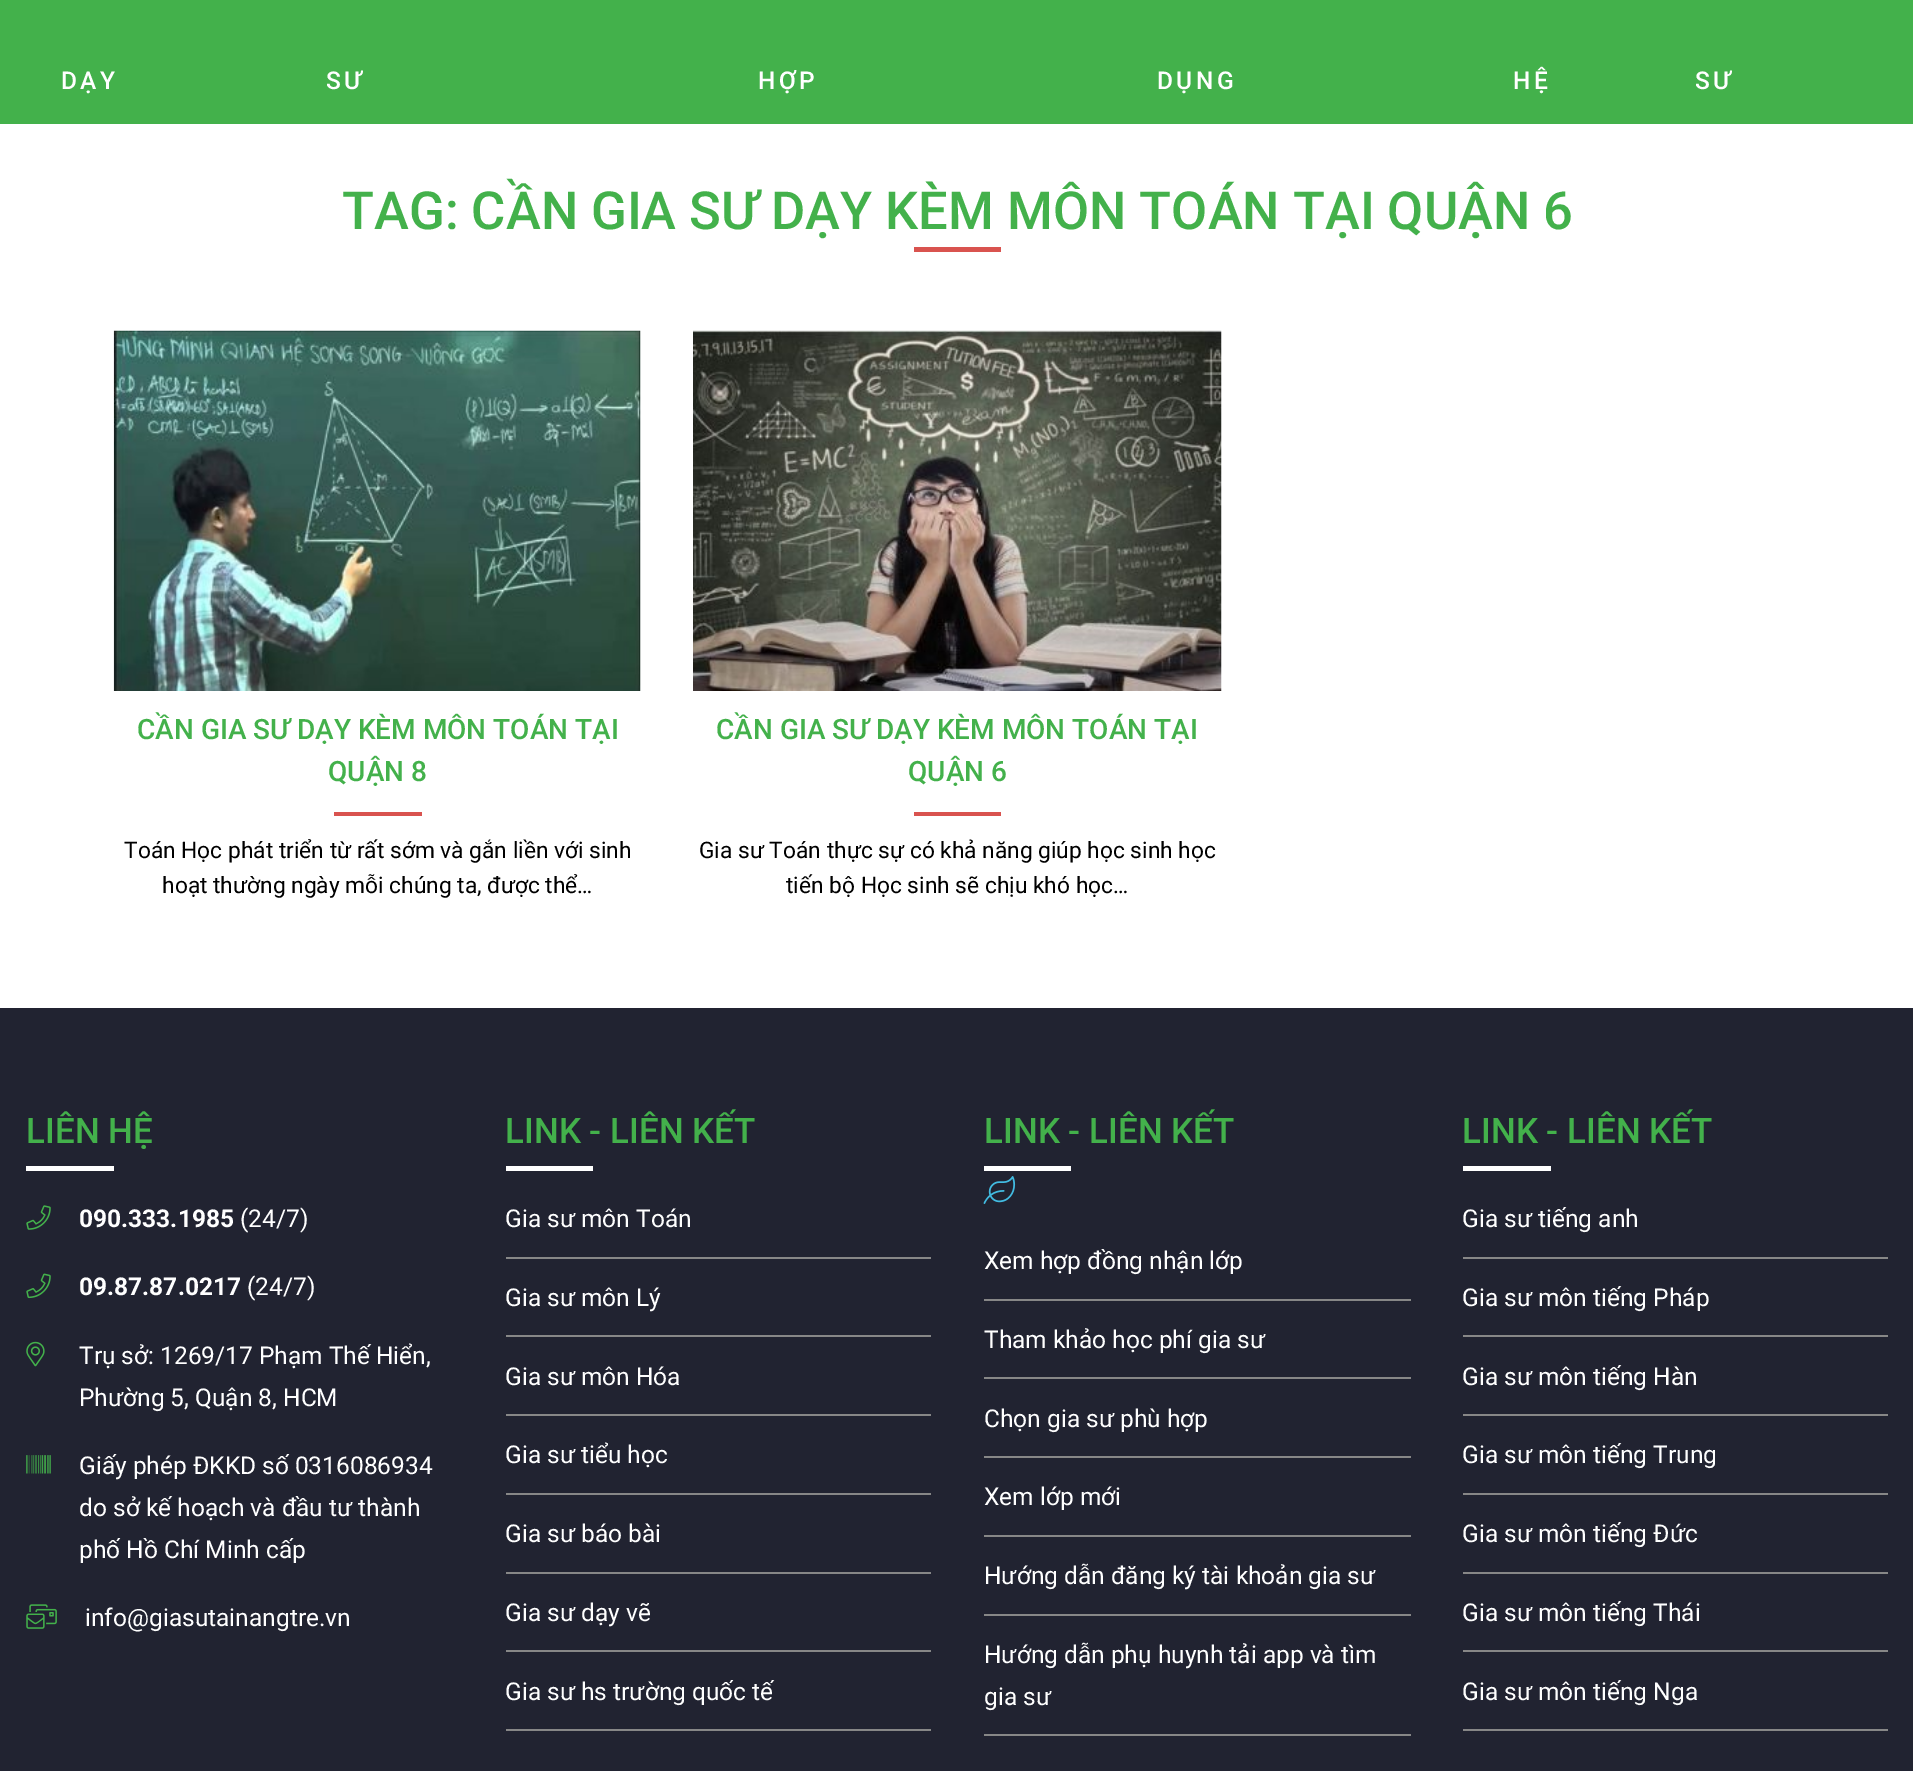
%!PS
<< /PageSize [1913 1771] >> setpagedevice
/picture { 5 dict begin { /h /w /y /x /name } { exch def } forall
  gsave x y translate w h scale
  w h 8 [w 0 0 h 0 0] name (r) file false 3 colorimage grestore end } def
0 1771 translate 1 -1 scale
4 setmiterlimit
1 setgray
0 0 1913 1771 rectfill
0.263 0.694 0.294 setrgbcolor
0 0 1913 124 rectfill
/Roboto-Medium [24.5 0 0 -24.5 0 0] selectfont
1 setgray
61 89 moveto 3.5 0 (DẠY) ashow
326 89 moveto 3.5 0 (SƯ) ashow
758 89 moveto 3.5 0 (HỢP) ashow
1157 89 moveto 3.5 0 (DỤNG) ashow
1513 89 moveto 3.5 0 (HỆ) ashow
1695 89 moveto 3.5 0 (SƯ) ashow
/Roboto-Medium [52.5 0 0 -52.5 0 0] selectfont
0.263 0.694 0.294 setrgbcolor
342 229 moveto (TAG: CẦN GIA SƯ DẠY KÈM MÔN TOÁN TẠI QUẬN 6) show
0.851 0.325 0.31 setrgbcolor
914 247 87 5 rectfill
(img1.rgb) 113 330 528 361 picture
/Roboto-Medium [28 0 0 -28 0 0] selectfont
0.263 0.694 0.294 setrgbcolor
137 739 moveto (CẦN GIA SƯ DẠY KÈM MÔN TOÁN TẠI) show
328 781 moveto (QUẬN 8) show
0.851 0.325 0.31 setrgbcolor
334 812 88 4 rectfill
/Roboto-Regular [22.75 0 0 -22.75 0 0] selectfont
0 setgray
124 858 moveto (Toán Học phát triển từ rất sớm và gắn liền với sinh) show
162 893 moveto (hoạt thường ngày mỗi chúng ta, được thể…) show
(img2.rgb) 693 330 529 361 picture
/Roboto-Medium [28 0 0 -28 0 0] selectfont
0.263 0.694 0.294 setrgbcolor
716 739 moveto (CẦN GIA SƯ DẠY KÈM MÔN TOÁN TẠI) show
908 781 moveto (QUẬN 6) show
0.851 0.325 0.31 setrgbcolor
914 812 87 4 rectfill
/Roboto-Regular [22.75 0 0 -22.75 0 0] selectfont
0 setgray
699 858 moveto (Gia sư Toán thực sự có khả năng giúp học sinh học) show
786 893 moveto (tiến bộ Học sinh sẽ chịu khó học…) show
0.129 0.137 0.192 setrgbcolor
0 1008 1913 763 rectfill
/Roboto-Medium [35 0 0 -35 0 0] selectfont
0.263 0.694 0.294 setrgbcolor
26 1143 moveto (LIÊN HỆ) show
1 setgray
26 1166 88 5 rectfill
(img3.rgb) 26 1205 25 25 picture
/Roboto-Bold [24.5 0 0 -24.5 0 0] selectfont
79 1227 moveto (090.333.1985) show
/Roboto-Regular [24.5 0 0 -24.5 0 0] selectfont
240 1227 moveto (\(24/7\)) show
(img4.rgb) 26 1273 25 26 picture
/Roboto-Bold [24.5 0 0 -24.5 0 0] selectfont
79 1295 moveto (09.87.87.0217) show
/Roboto-Regular [24.5 0 0 -24.5 0 0] selectfont
247 1295 moveto (\(24/7\)) show
(img5.rgb) 26 1341 19 26 picture
79 1364 moveto (Trụ sở: 1269/17 Phạm Thế Hiển,) show
79 1406 moveto (Phường 5, Quận 8, HCM) show
(img6.rgb) 26 1455 25 19 picture
79 1474 moveto (Giấy phép ĐKKD số 0316086934) show
79 1516 moveto (do sở kế hoạch và đầu tư thành) show
79 1558 moveto (phố Hồ Chí Minh cấp) show
(img7.rgb) 26 1604 31 25 picture
85 1626 moveto (info@giasutainangtre.vn) show
/Roboto-Medium [35 0 0 -35 0 0] selectfont
0.263 0.694 0.294 setrgbcolor
505 1143 moveto (LINK - LIÊN KẾT) show
1 setgray
506 1166 87 5 rectfill
0.529 setgray
506 1257 425 2 rectfill
/Roboto-Regular [24.5 0 0 -24.5 0 0] selectfont
1 setgray
505 1227 moveto (Gia sư môn Toán) show
0.529 setgray
506 1335 425 2 rectfill
1 setgray
505 1306 moveto (Gia sư môn Lý) show
0.529 setgray
506 1414 425 2 rectfill
1 setgray
505 1385 moveto (Gia sư môn Hóa) show
0.529 setgray
506 1493 425 2 rectfill
1 setgray
505 1463 moveto (Gia sư tiểu học) show
0.529 setgray
506 1572 425 2 rectfill
1 setgray
505 1542 moveto (Gia sư báo bài) show
0.529 setgray
506 1650 425 2 rectfill
1 setgray
505 1621 moveto (Gia sư dạy vẽ) show
0.529 setgray
506 1729 425 2 rectfill
1 setgray
505 1700 moveto (Gia sư hs trường quốc tế) show
/Roboto-Medium [35 0 0 -35 0 0] selectfont
0.263 0.694 0.294 setrgbcolor
984 1143 moveto (LINK - LIÊN KẾT) show
1 setgray
984 1166 87 5 rectfill
(img8.rgb) 983 1176 33 28 picture
0.529 setgray
984 1299 427 2 rectfill
/Roboto-Regular [24.5 0 0 -24.5 0 0] selectfont
1 setgray
984 1269 moveto (Xem hợp đồng nhận lớp) show
0.529 setgray
984 1377 427 2 rectfill
1 setgray
984 1348 moveto (Tham khảo học phí gia sư) show
0.529 setgray
984 1456 427 2 rectfill
1 setgray
984 1427 moveto (Chọn gia sư phù hợp) show
0.529 setgray
984 1535 427 2 rectfill
1 setgray
984 1505 moveto (Xem lớp mới) show
0.529 setgray
984 1614 427 2 rectfill
1 setgray
984 1584 moveto (Hướng dẫn đăng ký tài khoản gia sư) show
0.529 setgray
984 1734 427 2 rectfill
1 setgray
984 1663 moveto (Hướng dẫn phụ huynh tải app và tìm) show
984 1705 moveto (gia sư) show
/Roboto-Medium [35 0 0 -35 0 0] selectfont
0.263 0.694 0.294 setrgbcolor
1462 1143 moveto (LINK - LIÊN KẾT) show
1 setgray
1463 1166 88 5 rectfill
0.529 setgray
1463 1257 425 2 rectfill
/Roboto-Regular [24.5 0 0 -24.5 0 0] selectfont
1 setgray
1462 1227 moveto (Gia sư tiếng anh) show
0.529 setgray
1463 1335 425 2 rectfill
1 setgray
1462 1306 moveto (Gia sư môn tiếng Pháp) show
0.529 setgray
1463 1414 425 2 rectfill
1 setgray
1462 1385 moveto (Gia sư môn tiếng Hàn) show
0.529 setgray
1463 1493 425 2 rectfill
1 setgray
1462 1463 moveto (Gia sư môn tiếng Trung) show
0.529 setgray
1463 1572 425 2 rectfill
1 setgray
1462 1542 moveto (Gia sư môn tiếng Đức) show
0.529 setgray
1463 1650 425 2 rectfill
1 setgray
1462 1621 moveto (Gia sư môn tiếng Thái) show
0.529 setgray
1463 1729 425 2 rectfill
1 setgray
1462 1700 moveto (Gia sư môn tiếng Nga) show
showpage
